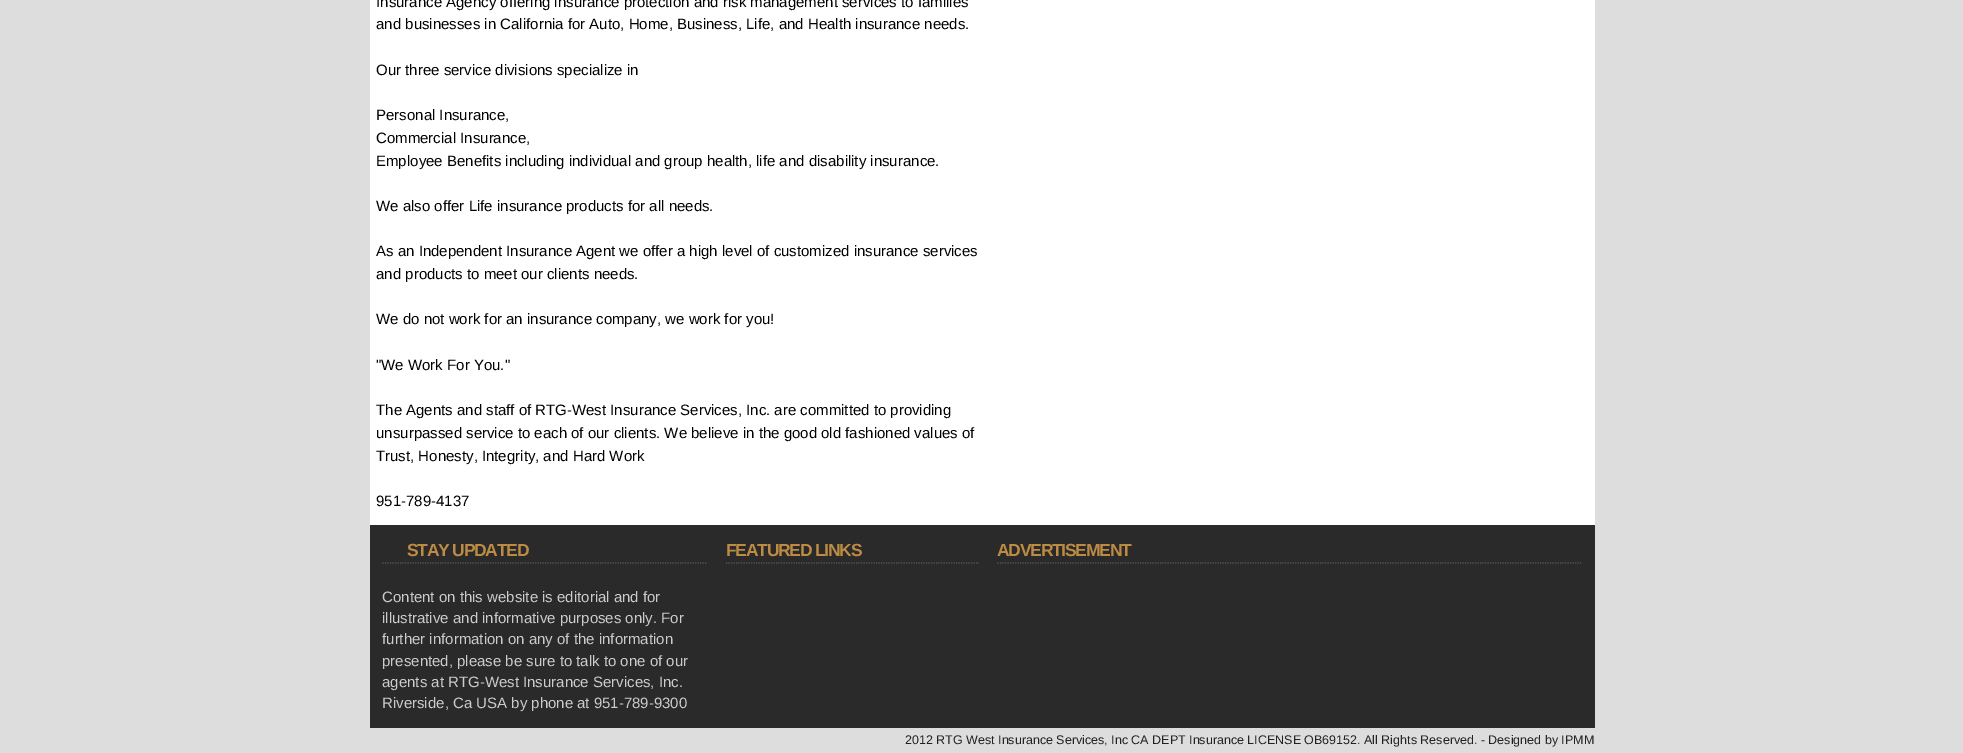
%!PS
<< /PageSize [1963 753] >> setpagedevice
0 753 translate 1 -1 scale
4 setmiterlimit
0.867 setgray
0 0 1963 753 rectfill
1 setgray
370 0 1225 525 rectfill
/LiberationSans-Regular [15 0 0 -15 0 0] selectfont
0 setgray
376 7 moveto (Insurance Agency offering insurance protection and risk management services to families) show
376 29 moveto (and businesses in California for Auto, Home, Business, Life, and Health insurance needs.) show
376 75 moveto (Our three service divisions specialize in) show
376 120 moveto (Personal Insurance,) show
376 143 moveto (Commercial Insurance,) show
376 166 moveto (Employee Benefits including individual and group health, life and disability insurance.) show
376 211 moveto (We also offer Life insurance products for all needs.) show
376 256 moveto (As an Independent Insurance Agent we offer a high level of customized insurance services) show
376 279 moveto (and products to meet our clients needs.) show
376 324 moveto (We do not work for an insurance company, we work for you!) show
376 370 moveto ("We Work For You.") show
376 415 moveto (The Agents and staff of RTG-West Insurance Services, Inc. are committed to providing) show
376 438 moveto (unsurpassed service to each of our clients. We believe in the good old fashioned values of) show
376 461 moveto (Trust, Honesty, Integrity, and Hard Work) show
376 506 moveto (951-789-4137) show
0.165 setgray
370 525 1225 203 rectfill
0.333 setgray
1.2 setlinewidth
[1.25 1.25] 0 setdash
newpath 382.5 563 moveto 707.5 563 lineto stroke
/LiberationSans-Bold [17.5 0 0 -17.5 0 0] selectfont
0.741 0.545 0.263 setrgbcolor
407 556 moveto -1.25 0 (STAY UPDATED) ashow
/LiberationSans-Regular [15 0 0 -15 0 0] selectfont
0.8 setgray
382 602 moveto (Content on this website is editorial and for) show
382 623 moveto (illustrative and informative purposes only. For) show
382 644 moveto (further information on any of the information) show
382 666 moveto (presented, please be sure to talk to one of our) show
382 687 moveto (agents at RTG-West Insurance Services, Inc.) show
382 708 moveto (Riverside, Ca USA by phone at 951-789-9300) show
0.333 setgray
newpath 726 563 moveto 979 563 lineto stroke
/LiberationSans-Bold [17.5 0 0 -17.5 0 0] selectfont
0.741 0.545 0.263 setrgbcolor
726 556 moveto -1.25 0 (FEATURED LINKS) ashow
0.333 setgray
newpath 997.5 563 moveto 1582.5 563 lineto stroke
0.741 0.545 0.263 setrgbcolor
997 556 moveto -1.25 0 (ADVERTISEMENT) ashow
/LiberationSans-Regular [12.5 0 0 -12.5 0 0] selectfont
0.133 setgray
905 744 moveto (2012 RTG West Insurance Services, Inc CA DEPT Insurance LICENSE OB69152. All Rights Reserved. - Designed by IPMM) show
showpage
